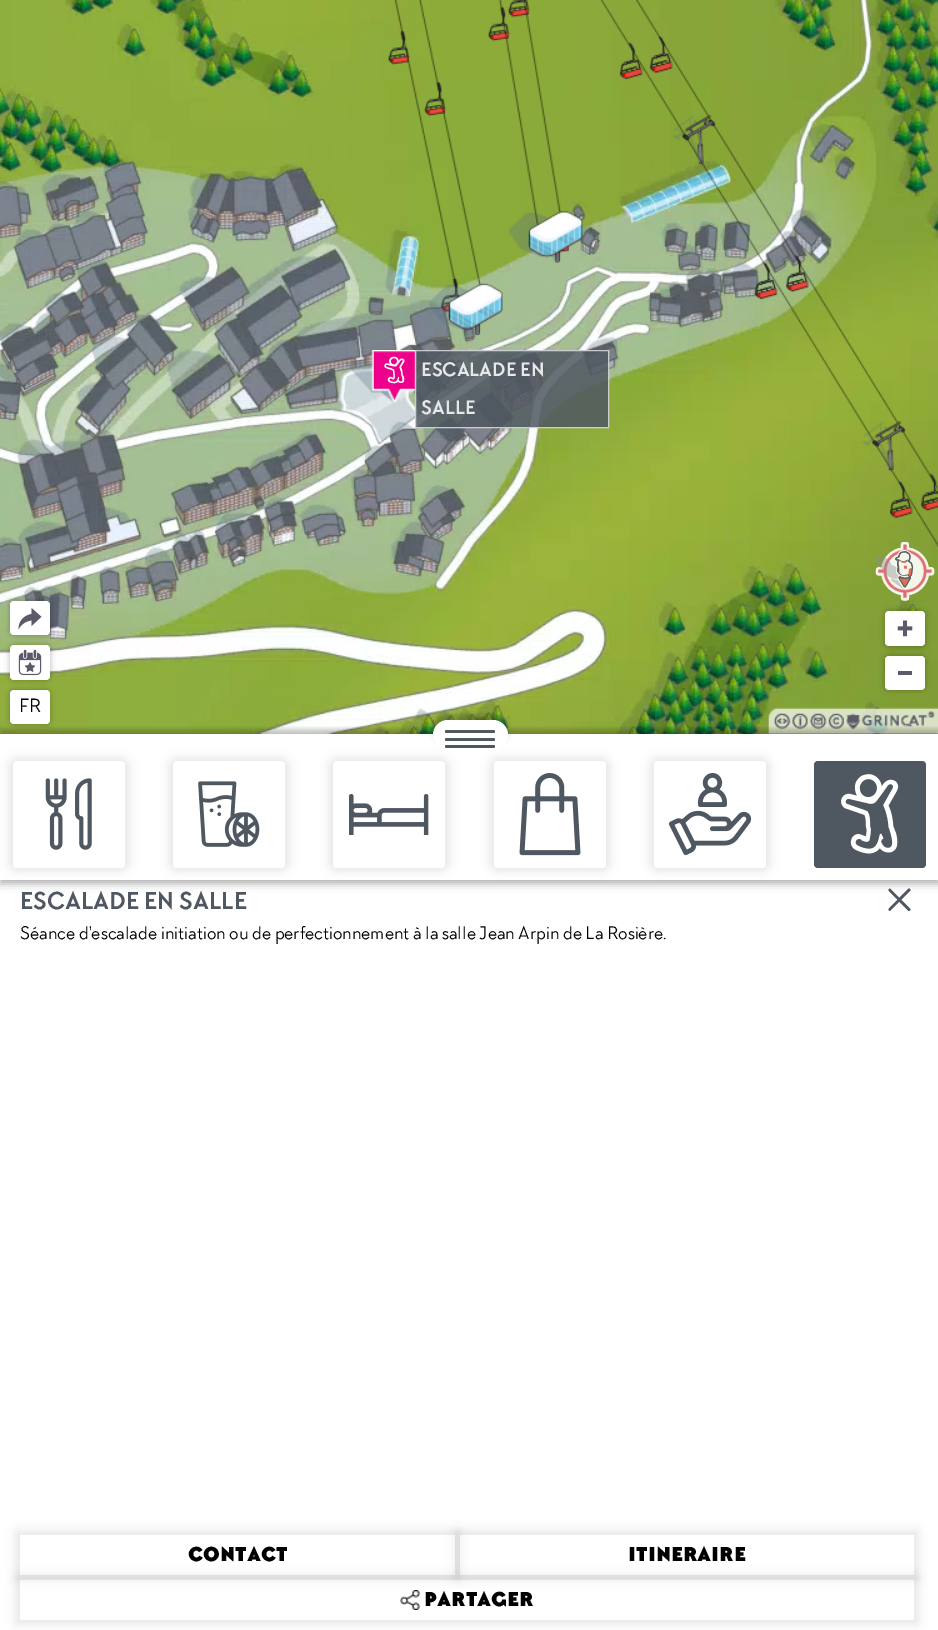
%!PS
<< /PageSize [938 1630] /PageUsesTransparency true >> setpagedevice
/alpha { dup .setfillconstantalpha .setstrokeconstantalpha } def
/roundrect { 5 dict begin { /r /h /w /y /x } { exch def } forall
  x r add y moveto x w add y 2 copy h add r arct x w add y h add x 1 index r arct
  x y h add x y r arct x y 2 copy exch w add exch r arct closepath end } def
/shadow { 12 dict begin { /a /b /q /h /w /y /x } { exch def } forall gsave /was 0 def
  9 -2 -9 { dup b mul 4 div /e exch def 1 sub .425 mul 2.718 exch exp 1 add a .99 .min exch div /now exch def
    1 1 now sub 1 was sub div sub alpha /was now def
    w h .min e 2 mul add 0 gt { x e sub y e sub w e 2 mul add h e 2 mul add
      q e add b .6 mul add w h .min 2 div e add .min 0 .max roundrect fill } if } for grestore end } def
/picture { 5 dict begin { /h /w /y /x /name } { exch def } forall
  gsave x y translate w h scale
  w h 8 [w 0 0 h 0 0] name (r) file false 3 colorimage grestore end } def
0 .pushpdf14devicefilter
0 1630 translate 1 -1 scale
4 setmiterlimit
1 setgray
0 0 938 1630 rectfill
(img1.rgb) 0 0 938 734 picture
(img2.rgb) 344 350 73 53 picture
(img3.rgb) 384 356 21 28 picture
0.85 alpha
0.31 0.341 0.38 setrgbcolor
415 350 194 78 rectfill
0.875 0.875 0.89 setrgbcolor
415.5 350.5 193 77 rectstroke
/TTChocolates-Bold [20 0 0 -20 0 0] selectfont
1 alpha
0.902 0.906 0.91 setrgbcolor
421 376 moveto (ESCALADE EN) show
421 414 moveto (SALLE) show
0 setgray
884 610 42 38 5 2.5 0.2 shadow
1 setgray
885 611 40 35 4 roundrect fill
(img4.rgb) 897 620 16 17 picture
0 setgray
884 655 42 36 5 2.5 0.2 shadow
1 setgray
885 656 40 34 4 roundrect fill
0.357 0.353 0.416 setrgbcolor
898 671 14 4 rectfill
(img5.rgb) 875 542 60 59 picture
0 setgray
9 600 42 36 5 2.5 0.2 shadow
1 setgray
10 601 40 34 4 roundrect fill
(img6.rgb) 18 608 24 22 picture
0 setgray
9 644 42 37 5 2.5 0.2 shadow
1 setgray
10 645 40 35 4 roundrect fill
(img7.rgb) 18 649 24 27 picture
0 setgray
9 689 42 36 5 2.5 0.2 shadow
1 setgray
10 690 40 34 4 roundrect fill
/TTChocolates-Regular [20 0 0 -20 0 0] selectfont
0 setgray
19 712 moveto (FR) show
(img8.rgb) 768 707 170 27 picture
gsave
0 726 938 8 rectclip
0 729 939 146 0 2.5 0.2 shadow
grestore
0.31 0.341 0.38 setrgbcolor
newpath 889 889 moveto 889.5 888.5 890 888.5 890.5 889 curveto 910 908.5 lineto 910.5 909 910.5 910 910 910.5 curveto 909.5 911 908.5 911 908 910.5 curveto 889 891 lineto 888.5 890.5 888.5 889.5 889 889 curveto closepath fill
newpath 910 889 moveto 910.5 889.5 910.5 890.5 910 891 curveto 890.5 910.5 lineto 890 911 889.5 911 889 910.5 curveto 888.5 910 888.5 909 889 908.5 curveto 908 889 lineto 908.5 888.5 909.5 888.5 910 889 curveto closepath fill
gsave
newpath 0 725 moveto 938 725 lineto 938 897 lineto 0 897 lineto closepath 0 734 moveto 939 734 lineto 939 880 lineto 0 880 lineto closepath eoclip newpath
0 setgray
0 738 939 146 0 4 0.3 shadow
grestore
0 setgray
433 715 75 30 15 2.5 0.2 shadow
329 758 120 113 8 5 0.1 shadow
490 758 120 113 8 5 0.1 shadow
1 setgray
433 720 75 30 15 roundrect fill
0.31 0.341 0.38 setrgbcolor
445 730 50 3 1.5 roundrect fill
445 738 50 3 1.5 roundrect fill
445 745 50 3 1.5 roundrect fill
0 setgray
9 758 120 113 8 5 0.1 shadow
1 setgray
13 761 112 107 4 roundrect fill
(img9.rgb) 45 778 47 72 picture
0 setgray
169 758 120 113 8 5 0.1 shadow
1 setgray
173 761 112 107 4 roundrect fill
(img10.rgb) 198 781 62 66 picture
333 761 112 107 4 roundrect fill
(img11.rgb) 349 794 80 41 picture
494 761 112 107 4 roundrect fill
(img12.rgb) 519 773 62 83 picture
0 setgray
650 758 120 113 8 5 0.1 shadow
1 setgray
654 761 112 107 4 roundrect fill
(img13.rgb) 668 773 84 83 picture
0.31 0.341 0.38 setrgbcolor
814 761 112 107 4 roundrect fill
(img14.rgb) 841 774 58 80 picture
/TTChocolates-Bold [25 0 0 -25 0 0] selectfont
20 909 moveto (ESCALADE EN SALLE) show
/TTChocolates-Regular [19 0 0 -19 0 0] selectfont
0 setgray
20 939 moveto (Séance d'escalade initiation ou de perfectionnement à la salle Jean Arpin de La Rosière.) show
gsave
newpath 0 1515 moveto 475 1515 lineto 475 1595 lineto 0 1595 lineto closepath 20 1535 moveto 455 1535 lineto 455 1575 lineto 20 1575 lineto closepath eoclip newpath
16 1531 443 48 0 5 0.1 shadow
grestore
/TTChocolates-Black [20 0 0 -20 0 0] selectfont
188 1561 moveto (CONTACT) show
gsave
newpath 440 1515 moveto 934 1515 lineto 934 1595 lineto 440 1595 lineto closepath 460 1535 moveto 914 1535 lineto 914 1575 lineto 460 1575 lineto closepath eoclip newpath
456 1531 462 48 0 5 0.1 shadow
grestore
628 1561 moveto (ITINERAIRE) show
gsave
newpath 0 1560 moveto 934 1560 lineto 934 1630 lineto 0 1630 lineto closepath 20 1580 moveto 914 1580 lineto 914 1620 lineto 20 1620 lineto closepath eoclip newpath
16 1576 902 48 0 5 0.1 shadow
grestore
(img15.rgb) 399 1590 21 20 picture
424 1606 moveto (PARTAGER) show
.poppdf14devicefilter showpage
